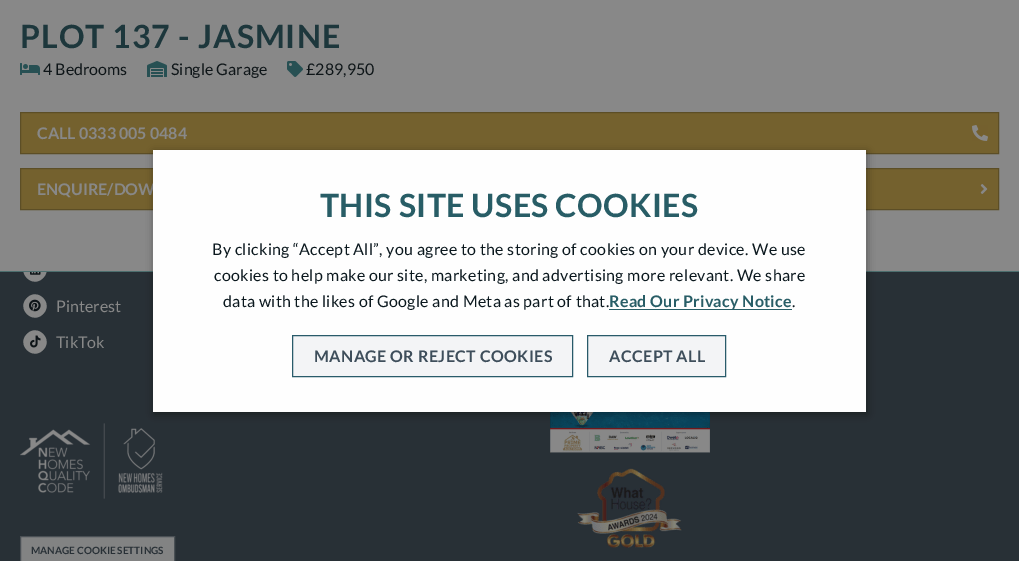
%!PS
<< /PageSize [1019 561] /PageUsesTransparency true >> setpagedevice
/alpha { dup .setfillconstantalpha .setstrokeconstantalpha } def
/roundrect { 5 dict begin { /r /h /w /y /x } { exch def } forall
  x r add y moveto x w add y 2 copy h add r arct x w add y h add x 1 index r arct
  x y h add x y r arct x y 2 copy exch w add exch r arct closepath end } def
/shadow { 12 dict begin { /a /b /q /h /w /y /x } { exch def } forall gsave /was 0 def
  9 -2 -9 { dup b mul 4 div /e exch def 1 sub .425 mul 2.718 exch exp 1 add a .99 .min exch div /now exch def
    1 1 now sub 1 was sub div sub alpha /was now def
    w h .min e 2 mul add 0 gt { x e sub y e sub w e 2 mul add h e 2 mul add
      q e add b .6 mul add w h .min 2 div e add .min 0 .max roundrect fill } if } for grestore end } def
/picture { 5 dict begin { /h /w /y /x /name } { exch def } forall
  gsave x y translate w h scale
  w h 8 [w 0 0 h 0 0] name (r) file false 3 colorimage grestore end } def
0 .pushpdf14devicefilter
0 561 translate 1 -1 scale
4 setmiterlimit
0.157 0.188 0.212 setrgbcolor
0 0 1019 561 rectfill
0.533 setgray
newpath 27 262 moveto 37.5 251 54 267.5 43 278 curveto 32.5 289 16 272.5 27 262 curveto closepath fill
0 0 1019 271 rectfill
0.298 0.431 0.431 setrgbcolor
0 271 1019 1 rectfill
/Lato-Bold [32 0 0 -32 0 0] selectfont
0.114 0.216 0.235 setrgbcolor
20 48 moveto 1 0 (PLOT 137 - JASMINE) ashow
(img1.rgb) 20 63 20 12 picture
/Lato-Regular [16 0 0 -16 0 0] selectfont
0.055 0.082 0.094 setrgbcolor
43 75 moveto (4 Bedrooms) show
(img2.rgb) 147 61 20 16 picture
171 75 moveto (Single Garage) show
(img3.rgb) 287 61 16 16 picture
306 75 moveto (£289,950) show
0.455 0.38 0.18 setrgbcolor
newpath 20.5 112.5 moveto 998.5 112.5 lineto 998.5 153.5 lineto 20.5 153.5 lineto closepath gsave fill grestore
0.361 0.306 0.149 setrgbcolor
stroke
/Lato-Bold [16 0 0 -16 0 0] selectfont
0.533 setgray
37 139 moveto (CALL 0333 005 0484) show
(img4.rgb) 972 125 16 16 picture
0.455 0.38 0.18 setrgbcolor
newpath 20.5 168.5 moveto 998.5 168.5 lineto 998.5 209.5 lineto 20.5 209.5 lineto closepath gsave fill grestore
0.361 0.306 0.149 setrgbcolor
stroke
0.533 setgray
37 195 moveto (ENQUIRE/DOW) show
(img5.rgb) 980 184 8 10 picture
(img9.rgb) 20 423 143 76 picture
(img10.rgb) 550 412 160 136 picture
0 setgray
154 152 713 262 0 4 0.35 shadow
0.996 setgray
153 150 713 262 rectfill
/Lato-Bold [32 0 0 -32 0 0] selectfont
0.157 0.365 0.4 setrgbcolor
320 217 moveto 0.4 0 (THIS SITE USES COOKIES) ashow
/Lato-Regular [16 0 0 -16 0 0] selectfont
0.043 0.094 0.118 setrgbcolor
212 255 moveto 0.3 0 (By clicking “Accept All”, you agree to the storing of cookies on your device. We use) ashow
214 281 moveto 0.3 0 (cookies to help make our site, marketing, and advertising more relevant. We share) ashow
223 307 moveto 0.3 0 (data with the likes of Google and Meta as part of that.) ashow
0.157 0.365 0.4 setrgbcolor
609 309 183 1 rectfill
/Lato-Bold [16 0 0 -16 0 0] selectfont
609 307 moveto 0.3 0 (Read Our Privacy Notice) ashow
/Lato-Regular [16 0 0 -16 0 0] selectfont
0.043 0.094 0.118 setrgbcolor
792 307 moveto 0.3 0 (.) ashow
0.953 0.957 0.965 setrgbcolor
newpath 292.5 335.5 moveto 572.5 335.5 lineto 572.5 376.5 lineto 292.5 376.5 lineto closepath gsave fill grestore
0.161 0.357 0.416 setrgbcolor
stroke
/Lato-Bold [16 0 0 -16 0 0] selectfont
0.243 0.306 0.357 setrgbcolor
314 362 moveto 0.4 0 (MANAGE OR REJECT COOKIES) ashow
0.953 0.957 0.965 setrgbcolor
newpath 587.5 335.5 moveto 725.5 335.5 lineto 725.5 376.5 lineto 587.5 376.5 lineto closepath gsave fill grestore
0.161 0.357 0.416 setrgbcolor
stroke
0.243 0.306 0.357 setrgbcolor
609 362 moveto 0.4 0 (ACCEPT ALL) ashow
(img6.rgb) 30 272 11 3 picture
0.533 setgray
newpath 27 298 moveto 37.5 287 54 303.5 43 314 curveto 32.5 325 16 308.5 27 298 curveto closepath fill
(img7.rgb) 29 299 12 13 picture
/Lato-Regular [16 0 0 -16 0 0] selectfont
56 312 moveto (Pinterest) show
newpath 27 334 moveto 37.5 323 54 339.5 43 350 curveto 32.5 361 16 344.5 27 334 curveto closepath fill
(img8.rgb) 30 335 11 13 picture
56 348 moveto (TikTok) show
0.51 0.514 0.514 setrgbcolor
newpath 20.5 536.5 moveto 174.5 536.5 lineto 174.5 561.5 lineto 20.5 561.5 lineto closepath gsave fill grestore
0.29 0.314 0.333 setrgbcolor
stroke
/Lato-Bold [10 0 0 -10 0 0] selectfont
0.157 0.188 0.212 setrgbcolor
31 554 moveto (MANAGE COOKIE SETTINGS) show
.poppdf14devicefilter showpage
